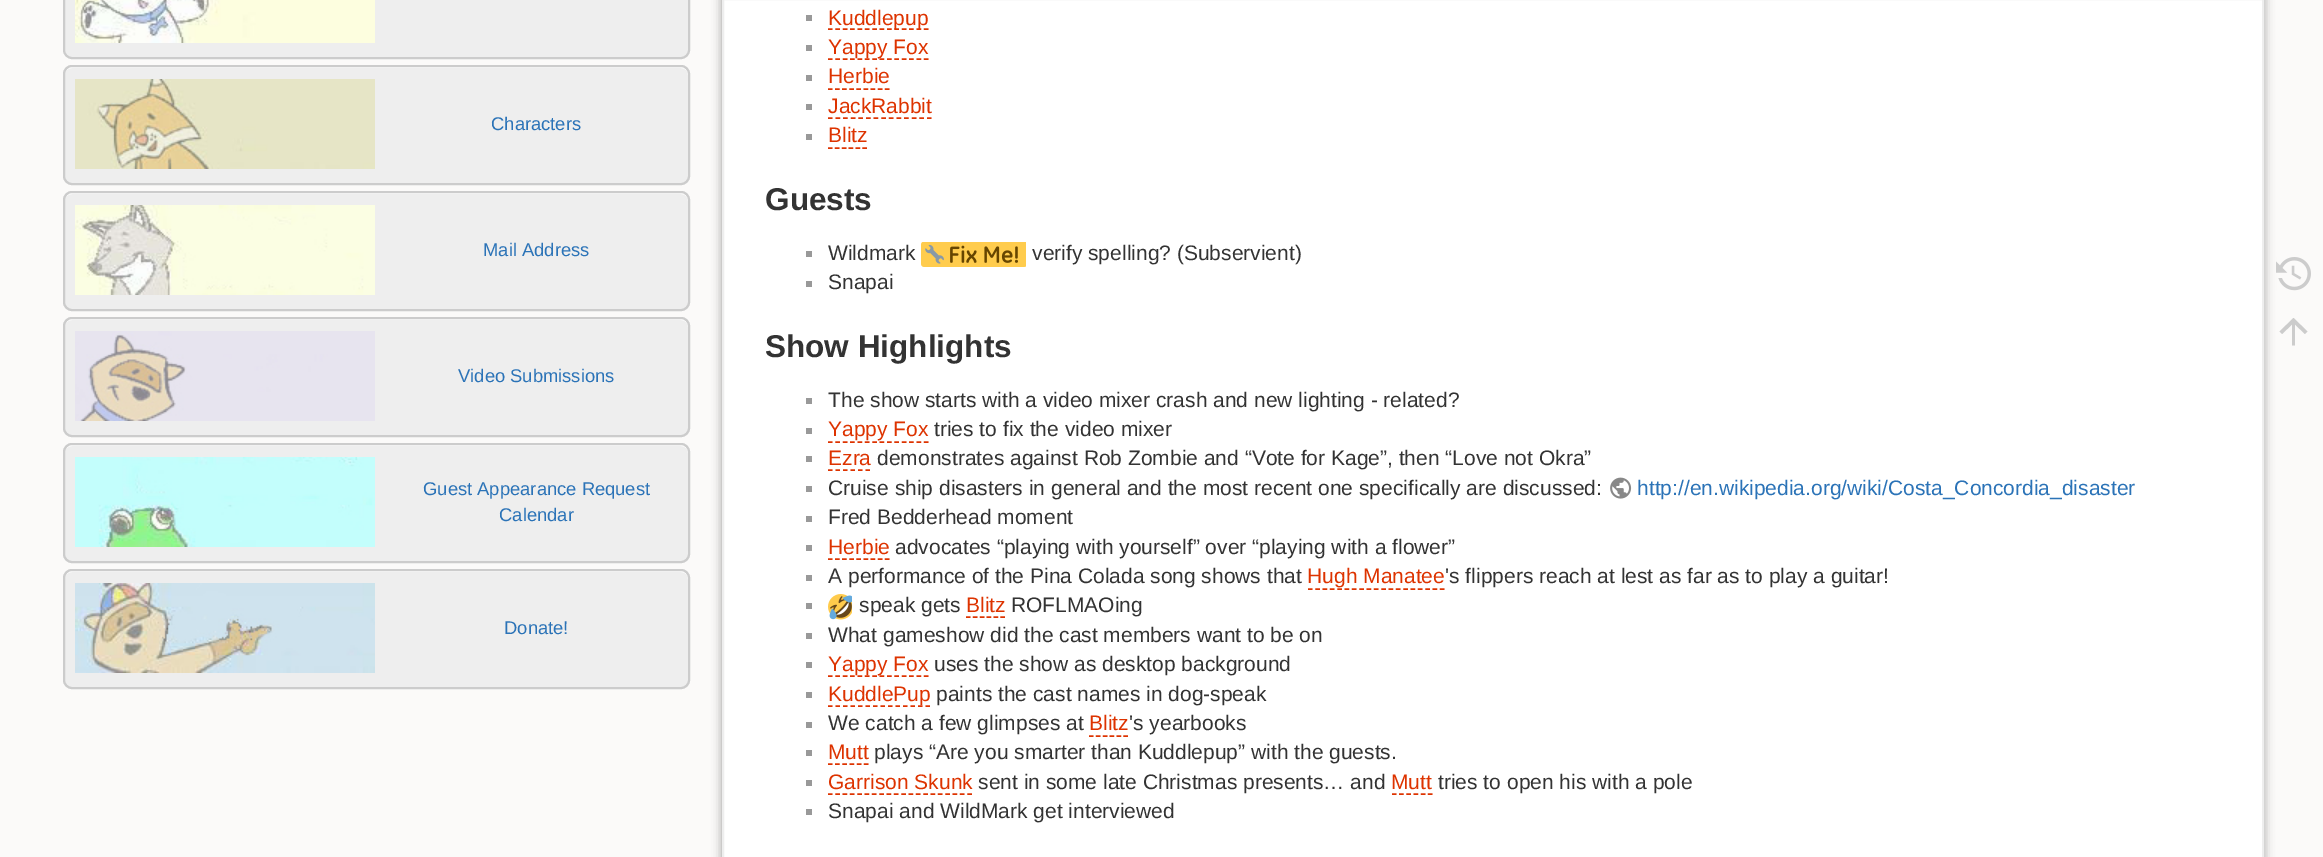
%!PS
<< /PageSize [2323 857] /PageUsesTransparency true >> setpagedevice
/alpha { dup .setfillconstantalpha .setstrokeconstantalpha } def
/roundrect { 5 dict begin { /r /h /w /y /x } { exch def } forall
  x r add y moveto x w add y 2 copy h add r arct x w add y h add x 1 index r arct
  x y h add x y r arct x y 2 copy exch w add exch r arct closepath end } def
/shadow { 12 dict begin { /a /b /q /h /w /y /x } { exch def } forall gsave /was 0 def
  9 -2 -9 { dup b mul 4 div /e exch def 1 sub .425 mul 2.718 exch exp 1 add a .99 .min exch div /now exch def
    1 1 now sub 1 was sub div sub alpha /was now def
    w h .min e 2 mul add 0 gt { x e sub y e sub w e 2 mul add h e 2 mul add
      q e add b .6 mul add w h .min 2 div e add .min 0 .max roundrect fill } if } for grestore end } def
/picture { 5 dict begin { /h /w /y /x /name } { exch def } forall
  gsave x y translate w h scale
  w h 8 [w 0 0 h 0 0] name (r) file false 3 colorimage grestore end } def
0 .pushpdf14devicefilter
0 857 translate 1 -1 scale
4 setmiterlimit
0.984 0.98 0.976 setrgbcolor
0 0 2323 857 rectfill
0.933 setgray
64 -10 625 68 8 roundrect gsave fill grestore
0.8 setgray
2 setlinewidth
stroke
(img1.rgb) 75 0 300 43 picture
0.933 setgray
63 65 627 120 9 roundrect fill
1 setgray
newpath 72 68 moveto 681 68 lineto 685 68 688 71 688 75 curveto 688 177 lineto 688 180 lineto 688 178 689 177 689 175 curveto 689 74 lineto 689 70 685 66 681 66 curveto 73 66 lineto 70 66 67 68 66 71 curveto 67 69 70 68 72 68 curveto closepath fill
0.8 setgray
64 66 625 118 8 roundrect stroke
(img2.rgb) 75 79 300 90 picture
/LiberationSans-Regular [18.4 0 0 -18.4 0 0] selectfont
0.169 0.451 0.718 setrgbcolor
491 130 moveto (Characters) show
0.933 setgray
63 191 627 120 9 roundrect fill
1 setgray
newpath 72 194 moveto 681 194 lineto 685 194 688 197 688 201 curveto 688 303 lineto 688 306 lineto 688 304 689 303 689 301 curveto 689 200 lineto 689 196 685 192 681 192 curveto 73 192 lineto 70 192 67 194 66 197 curveto 67 195 70 194 72 194 curveto closepath fill
0.8 setgray
64 192 625 118 8 roundrect stroke
(img3.rgb) 75 205 300 90 picture
0.169 0.451 0.718 setrgbcolor
483 256 moveto (Mail Address) show
0.933 setgray
63 317 627 120 9 roundrect fill
1 setgray
newpath 72 320 moveto 681 320 lineto 685 320 688 323 688 327 curveto 688 429 lineto 688 432 lineto 688 430 689 429 689 427 curveto 689 326 lineto 689 322 685 318 681 318 curveto 73 318 lineto 70 318 67 320 66 323 curveto 67 321 70 320 72 320 curveto closepath fill
0.8 setgray
64 318 625 118 8 roundrect stroke
(img4.rgb) 75 331 300 90 picture
0.169 0.451 0.718 setrgbcolor
458 382 moveto (Video Submissions) show
0.933 setgray
63 443 627 120 9 roundrect fill
1 setgray
newpath 72 446 moveto 681 446 lineto 685 446 688 449 688 453 curveto 688 555 lineto 688 558 lineto 688 556 689 555 689 553 curveto 689 452 lineto 689 448 685 444 681 444 curveto 73 444 lineto 70 444 67 446 66 449 curveto 67 447 70 446 72 446 curveto closepath fill
0.8 setgray
64 444 625 118 8 roundrect stroke
(img5.rgb) 75 457 300 90 picture
0.169 0.451 0.718 setrgbcolor
423 495 moveto (Guest Appearance Request) show
499 521 moveto (Calendar) show
0.933 setgray
63 569 627 120 9 roundrect fill
1 setgray
newpath 72 572 moveto 681 572 lineto 685 572 688 575 688 579 curveto 688 681 lineto 688 684 lineto 688 682 689 681 689 679 curveto 689 578 lineto 689 574 685 570 681 570 curveto 73 570 lineto 70 570 67 572 66 575 curveto 67 573 70 572 72 572 curveto closepath fill
0.8 setgray
64 570 625 118 8 roundrect stroke
(img6.rgb) 75 583 300 90 picture
0.169 0.451 0.718 setrgbcolor
504 634 moveto (Donate!) show
0.6 setgray
722 -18 1542 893 3 5 1 shadow
1 setgray
newpath 723 -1 moveto 2263 -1 lineto 2263 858 lineto 723 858 lineto closepath gsave fill grestore
0.933 setgray
stroke
0.6 setgray
806 15 6 6 rectfill
0.867 0.2 0 setrgbcolor
1.5 setlinewidth
[4.5 2.88] 0 setdash
newpath 828 29 moveto 928.5 29 lineto stroke
/LiberationSans-Regular [21 0 0 -21 0 0] selectfont
828 25 moveto (Kuddlepup) show
0.6 setgray
806 45 6 6 rectfill
0.867 0.2 0 setrgbcolor
newpath 828 59 moveto 928.5 59 lineto stroke
828 54 moveto (Yappy Fox) show
0.6 setgray
806 75 6 6 rectfill
0.867 0.2 0 setrgbcolor
828 83 moveto (Herbie) show
[4.5 2.62] 0 setdash
newpath 828 89 moveto 889.5 89 lineto stroke
0.6 setgray
806 104 6 6 rectfill
0.867 0.2 0 setrgbcolor
828 113 moveto (JackRabbit) show
[4.5 3.12] 0 setdash
newpath 828 118 moveto 931.5 118 lineto stroke
0.6 setgray
806 134 6 6 rectfill
0.867 0.2 0 setrgbcolor
828 142 moveto (Blitz) show
[4.5 2.4] 0 setdash
newpath 828 148 moveto 867 148 lineto stroke
/LiberationSans-Bold [31.5 0 0 -31.5 0 0] selectfont
0.2 setgray
765 210 moveto (Guests) show
0.6 setgray
806 251 6 6 rectfill
/LiberationSans-Regular [21 0 0 -21 0 0] selectfont
0.2 setgray
828 260 moveto (Wildmark) show
(img7.rgb) 921 242 105 25 picture
1032 260 moveto (verify spelling? \(Subservient\)) show
0.6 setgray
806 281 6 6 rectfill
0.2 setgray
828 289 moveto (Snapai) show
/LiberationSans-Bold [31.5 0 0 -31.5 0 0] selectfont
765 357 moveto (Show Highlights) show
0.6 setgray
806 398 6 6 rectfill
/LiberationSans-Regular [21 0 0 -21 0 0] selectfont
0.2 setgray
828 407 moveto (The show starts with a video mixer crash and new lighting - related?) show
0.6 setgray
806 428 6 6 rectfill
0.867 0.2 0 setrgbcolor
828 436 moveto (Yappy Fox) show
[4.5 2.88] 0 setdash
newpath 828 442 moveto 928.5 442 lineto stroke
0.2 setgray
934 436 moveto (tries to fix the video mixer) show
0.6 setgray
806 456 6 6 rectfill
0.867 0.2 0 setrgbcolor
828 465 moveto (Ezra) show
[4.5 3] 0 setdash
newpath 828 470 moveto 870 470 lineto stroke
0.2 setgray
877 465 moveto (demonstrates against Rob Zombie and “Vote for Kage”, then “Love not Okra”) show
0.6 setgray
806 486 6 6 rectfill
0.2 setgray
828 495 moveto (Cruise ship disasters in general and the most recent one specifically are discussed:) show
(img8.rgb) 1610 477 22 22 picture
0.169 0.451 0.718 setrgbcolor
1637 495 moveto (http://en.wikipedia.org/wiki/Costa_Concordia_disaster) show
0.6 setgray
806 516 6 6 rectfill
0.2 setgray
828 524 moveto (Fred Bedderhead moment) show
0.6 setgray
806 545 6 6 rectfill
0.867 0.2 0 setrgbcolor
828 554 moveto (Herbie) show
[4.5 2.62] 0 setdash
newpath 828 559 moveto 889.5 559 lineto stroke
0.2 setgray
895 554 moveto (advocates “playing with yourself” over “playing with a flower”) show
0.6 setgray
806 575 6 6 rectfill
0.2 setgray
828 583 moveto (A performance of the Pina Colada song shows that) show
0.867 0.2 0 setrgbcolor
1307 583 moveto (Hugh Manatee) show
[4.5 2.83] 0 setdash
newpath 1308 589 moveto 1444.5 589 lineto stroke
0.2 setgray
1445 583 moveto ('s flippers reach at lest as far as to play a guitar!) show
0.6 setgray
806 603 6 6 rectfill
(img9.rgb) 828 594 24 26 picture
0.2 setgray
859 612 moveto (speak gets) show
0.867 0.2 0 setrgbcolor
966 612 moveto (Blitz) show
[4.5 2.4] 0 setdash
newpath 966 617 moveto 1005 617 lineto stroke
0.2 setgray
1011 612 moveto (ROFLMAOing) show
0.6 setgray
806 633 6 6 rectfill
0.2 setgray
828 642 moveto (What gameshow did the cast members want to be on) show
0.6 setgray
806 662 6 6 rectfill
0.867 0.2 0 setrgbcolor
[4.5 2.88] 0 setdash
newpath 828 676 moveto 928.5 676 lineto stroke
828 671 moveto (Yappy Fox) show
0.2 setgray
934 671 moveto (uses the show as desktop background) show
0.6 setgray
806 692 6 6 rectfill
0.867 0.2 0 setrgbcolor
[4.5 3] 0 setdash
newpath 828 706 moveto 930 706 lineto stroke
828 701 moveto (KuddlePup) show
0.2 setgray
936 701 moveto (paints the cast names in dog-speak) show
0.6 setgray
806 722 6 6 rectfill
0.2 setgray
828 730 moveto (We catch a few glimpses at) show
0.867 0.2 0 setrgbcolor
1089 730 moveto (Blitz) show
[4.5 2.4] 0 setdash
newpath 1089 736 moveto 1128 736 lineto stroke
0.2 setgray
1129 730 moveto ('s yearbooks) show
0.6 setgray
806 750 6 6 rectfill
0.867 0.2 0 setrgbcolor
828 759 moveto (Mutt) show
[4.5 2.7] 0 setdash
newpath 828 764 moveto 868.5 764 lineto stroke
0.2 setgray
874 759 moveto (plays “Are you smarter than Kuddlepup” with the guests.) show
0.6 setgray
806 780 6 6 rectfill
0.867 0.2 0 setrgbcolor
828 789 moveto (Garrison Skunk) show
[4.5 2.83] 0 setdash
newpath 828 794 moveto 972 794 lineto stroke
0.2 setgray
978 789 moveto (sent in some late Christmas presents… and) show
0.867 0.2 0 setrgbcolor
1391 789 moveto (Mutt) show
[4.5 2.7] 0 setdash
newpath 1392 794 moveto 1432.5 794 lineto stroke
0.2 setgray
1438 789 moveto (tries to open his with a pole) show
0.6 setgray
806 809 6 6 rectfill
0.2 setgray
828 818 moveto (Snapai and WildMark get interviewed) show
(img10.rgb) 2276 257 35 34 picture
0.8 setgray
newpath 2295 345.5 moveto 2292 345.5 lineto 2292 324.5 lineto 2282 334 lineto 2279.5 331.5 lineto 2293.5 318 lineto 2307.5 331.5 lineto 2305 334 lineto 2295 324.5 lineto closepath fill
.poppdf14devicefilter showpage
